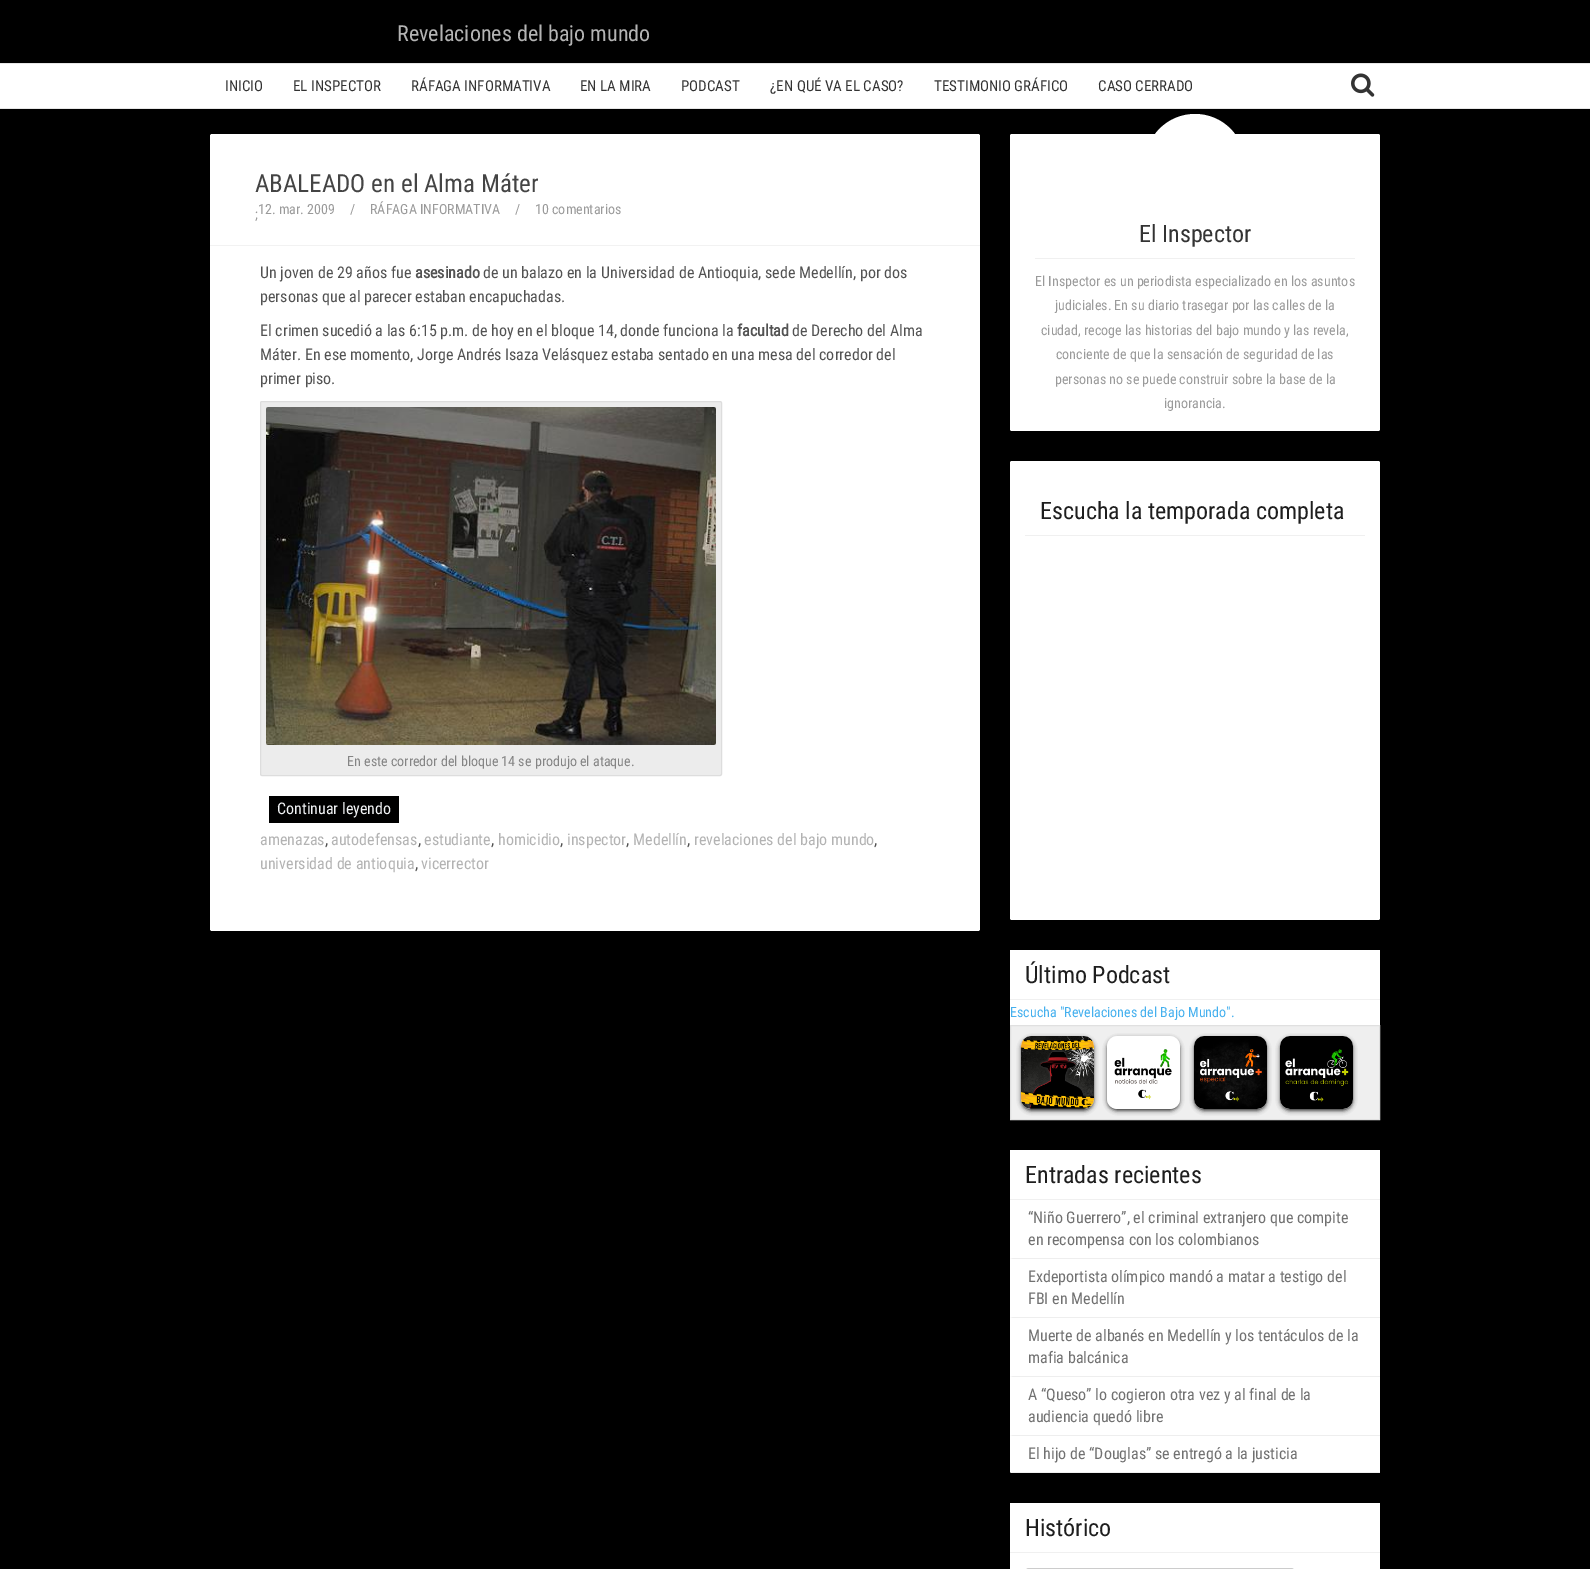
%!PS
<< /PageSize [1590 1569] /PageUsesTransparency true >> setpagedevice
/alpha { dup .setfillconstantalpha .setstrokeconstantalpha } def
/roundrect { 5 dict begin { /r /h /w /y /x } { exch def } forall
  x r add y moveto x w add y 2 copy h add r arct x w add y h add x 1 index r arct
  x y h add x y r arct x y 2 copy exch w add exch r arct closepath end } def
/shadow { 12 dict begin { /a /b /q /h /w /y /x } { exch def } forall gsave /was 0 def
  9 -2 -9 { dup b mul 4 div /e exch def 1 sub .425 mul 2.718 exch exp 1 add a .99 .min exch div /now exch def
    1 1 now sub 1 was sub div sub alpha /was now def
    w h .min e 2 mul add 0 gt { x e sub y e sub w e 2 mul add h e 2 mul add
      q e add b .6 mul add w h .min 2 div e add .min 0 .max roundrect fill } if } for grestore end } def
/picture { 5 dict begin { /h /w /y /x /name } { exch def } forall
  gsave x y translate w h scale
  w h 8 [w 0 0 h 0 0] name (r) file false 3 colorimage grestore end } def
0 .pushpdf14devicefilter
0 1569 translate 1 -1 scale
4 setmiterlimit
0 setgray
0 0 1590 1569 rectfill
1 setgray
0 64 1590 44 rectfill
/RobotoCondensed-Regular [22 0 0 -22 0 0] selectfont
0.702 setgray
397 41 moveto (Revelaciones del bajo mundo) show
0.902 setgray
0 108 1590 1 rectfill
0 63 1590 1 rectfill
/RobotoCondensed-Regular [15 0 0 -15 0 0] selectfont
0.2 setgray
225 91 moveto (INICIO) show
293 91 moveto (EL INSPECTOR) show
411 91 moveto (RÁFAGA INFORMATIVA) show
580 91 moveto (EN LA MIRA) show
681 91 moveto (PODCAST) show
770 91 moveto (¿EN QUÉ VA EL CASO?) show
934 91 moveto (TESTIMONIO GRÁFICO) show
1098 91 moveto (CASO CERRADO) show
(img1.rgb) 1351 73 24 24 picture
1 setgray
newpath 212 134 moveto 978 134 lineto 979 134 980 135 980 136 curveto 980 246 lineto 210 246 lineto 210 136 lineto 210 135 211 134 212 134 curveto closepath fill
/RobotoCondensed-Regular [25 0 0 -25 0 0] selectfont
0.267 setgray
255 192 moveto (ABALEADO en el Alma Máter) show
/RobotoCondensed-Regular [14 0 0 -14 0 0] selectfont
0.604 setgray
258 214 moveto (12. mar. 2009) show
350 214 moveto (/) show
370 214 moveto (RÁFAGA INFORMATIVA) show
515 214 moveto (/) show
535 214 moveto (10 comentarios) show
255 219 moveto (;) show
0.05 alpha
0 setgray
209.5 245.5 771 686 rectstroke
1 alpha
1 setgray
newpath 210 246 moveto 980 246 lineto 980 929 lineto 980 930 979 931 978 931 curveto 212 931 lineto 211 931 210 930 210 929 curveto closepath fill
/RobotoCondensed-Regular [16 0 0 -16 0 0] selectfont
0.322 setgray
260 278 moveto (Un joven de 29 años fue) show
/RobotoCondensed-Bold [16 0 0 -16 0 0] selectfont
415 278 moveto (asesinado) show
/RobotoCondensed-Regular [16 0 0 -16 0 0] selectfont
483 278 moveto (de un balazo en la Universidad de Antioquia, sede Medellín, por dos) show
260 302 moveto (personas que al parecer estaban encapuchadas.) show
260 336 moveto (El crimen sucedió a las 6:15 p.m. de hoy en el bloque 14, donde funciona la) show
/RobotoCondensed-Bold [16 0 0 -16 0 0] selectfont
737 336 moveto (facultad) show
/RobotoCondensed-Regular [16 0 0 -16 0 0] selectfont
792 336 moveto (de Derecho del Alma) show
260 360 moveto (Máter. En ese momento, Jorge Andrés Isaza Velásquez estaba sentado en una mesa del corredor del) show
260 384 moveto (primer piso.) show
0.925 setgray
260.5 401.5 461 374 1.5 roundrect gsave fill grestore
0.867 setgray
stroke
(img2.rgb) 266 407 450 338 picture
/RobotoCondensed-Regular [14 0 0 -14 0 0] selectfont
0.518 setgray
347 766 moveto (En este corredor del bloque 14 se produjo el ataque.) show
0 setgray
269 796 130 27 rectfill
/RobotoCondensed-Regular [16 0 0 -16 0 0] selectfont
0.945 0.953 0.961 setrgbcolor
277 814 moveto (Continuar leyendo) show
0.702 setgray
260 845 moveto (amenazas) show
0.322 setgray
325 845 moveto (,) show
0.702 setgray
331 845 moveto (autodefensas) show
0.322 setgray
418 845 moveto (,) show
0.702 setgray
424 845 moveto (estudiante) show
0.322 setgray
491 845 moveto (,) show
0.702 setgray
498 845 moveto (homicidio) show
0.322 setgray
560 845 moveto (,) show
0.702 setgray
567 845 moveto (inspector) show
0.322 setgray
626 845 moveto (,) show
0.702 setgray
633 845 moveto (Medellín) show
0.322 setgray
687 845 moveto (,) show
0.702 setgray
694 845 moveto (revelaciones del bajo mundo) show
0.322 setgray
874 845 moveto (,) show
0.702 setgray
260 869 moveto (universidad de antioquia) show
0.322 setgray
415 869 moveto (,) show
0.702 setgray
421 869 moveto (vicerrector) show
1 setgray
1010 134 370 297 2 roundrect fill
newpath 1195 164 50 0 360 arc closepath fill
0.941 setgray
1035 258 320 1 rectfill
/RobotoCondensed-Regular [24 0 0 -24 0 0] selectfont
0.2 setgray
1139 242 moveto (El Inspector) show
/RobotoCondensed-Regular [14 0 0 -14 0 0] selectfont
0.604 setgray
1035 286 moveto (El Inspector es un periodista especializado en los asuntos) show
1055 310 moveto (judiciales. En su diario trasegar por las calles de la) show
1041 335 moveto (ciudad, recoge las historias del bajo mundo y las revela,) show
1056 359 moveto (conciente de que la sensación de seguridad de las) show
1055 384 moveto (personas no se puede construir sobre la base de la) show
1164 408 moveto (ignorancia.) show
1 setgray
1010 461 370 459 2 roundrect fill
0.941 setgray
1025 535 340 1 rectfill
/RobotoCondensed-Regular [24 0 0 -24 0 0] selectfont
0.118 setgray
1040 519 moveto (Escucha la temporada completa) show
1 setgray
1010 1000 370 25 rectfill
1010 950 370 49 rectfill
0.941 setgray
1010 999 370 1 rectfill
0.118 setgray
1025 983 moveto (Último Podcast) show
/RobotoCondensed-Regular [14 0 0 -14 0 0] selectfont
0.271 0.69 0.933 setrgbcolor
1010 1017 moveto (Escucha "Revelaciones del Bajo Mundo".) show
0.937 setgray
newpath 1010.5 1025.5 moveto 1379.5 1025.5 lineto 1379.5 1119.5 lineto 1010.5 1119.5 lineto closepath gsave fill grestore
0.878 setgray
stroke
0 setgray
1022 1039 71 71 9 2.5 1 shadow
(img3.rgb) 1021 1036 73 73 picture
1108 1039 71 71 9 2.5 1 shadow
(img4.rgb) 1107 1036 73 73 picture
1195 1039 71 71 9 2.5 1 shadow
(img5.rgb) 1194 1036 73 73 picture
1281 1039 71 71 9 2.5 1 shadow
(img6.rgb) 1280 1036 73 73 picture
1 setgray
1010 1150 370 323 2 roundrect fill
1010 1150 370 2 rectfill
0.941 setgray
1010 1199 370 1 rectfill
/RobotoCondensed-Regular [24 0 0 -24 0 0] selectfont
0.118 setgray
1025 1183 moveto (Entradas recientes) show
0.933 setgray
newpath 1380 1259 moveto 1010 1259 lineto 1013 1258 lineto 1380 1258 lineto closepath fill
/RobotoCondensed-Regular [16 0 0 -16 0 0] selectfont
0.443 setgray
1028 1223 moveto (“Niño Guerrero”, el criminal extranjero que compite) show
1028 1245 moveto (en recompensa con los colombianos) show
0.933 setgray
newpath 1380 1318 moveto 1010 1318 lineto 1013 1317 lineto 1380 1317 lineto closepath fill
0.443 setgray
1028 1282 moveto (Exdeportista olímpico mandó a matar a testigo del) show
1028 1304 moveto (FBI en Medellín) show
0.933 setgray
newpath 1380 1377 moveto 1010 1377 lineto 1013 1376 lineto 1380 1376 lineto closepath fill
0.443 setgray
1028 1341 moveto (Muerte de albanés en Medellín y los tentáculos de la) show
1028 1363 moveto (mafia balcánica) show
0.933 setgray
newpath 1380 1436 moveto 1010 1436 lineto 1013 1435 lineto 1380 1435 lineto closepath fill
0.443 setgray
1028 1400 moveto (A “Queso” lo cogieron otra vez y al final de la) show
1028 1422 moveto (audiencia quedó libre) show
0.933 setgray
newpath 1380 1473 moveto 1010 1473 lineto 1013 1472 lineto 1380 1472 lineto closepath fill
0.443 setgray
1028 1459 moveto (El hijo de “Douglas” se entregó a la justicia) show
1 setgray
1010 1553 370 16 rectfill
1010 1503 370 49 rectfill
0.941 setgray
1010 1552 370 1 rectfill
/RobotoCondensed-Regular [24 0 0 -24 0 0] selectfont
0.118 setgray
1025 1536 moveto (Histórico) show
0.8 setgray
1025.5 1568.5 269 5 3.5 roundrect stroke
.poppdf14devicefilter showpage
